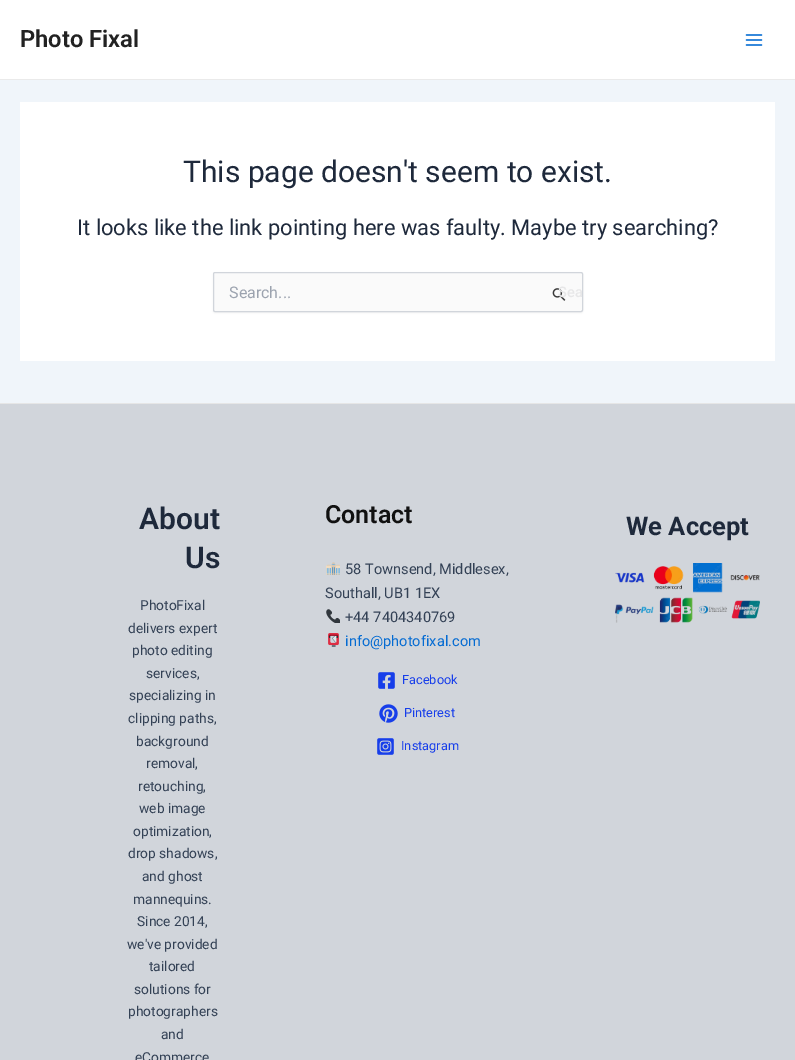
%!PS
<< /PageSize [795 1060] /PageUsesTransparency true >> setpagedevice
/alpha { dup .setfillconstantalpha .setstrokeconstantalpha } def
/roundrect { 5 dict begin { /r /h /w /y /x } { exch def } forall
  x r add y moveto x w add y 2 copy h add r arct x w add y h add x 1 index r arct
  x y h add x y r arct x y 2 copy exch w add exch r arct closepath end } def
/shadow { 12 dict begin { /a /b /q /h /w /y /x } { exch def } forall gsave /was 0 def
  9 -2 -9 { dup b mul 4 div /e exch def 1 sub .425 mul 2.718 exch exp 1 add a .99 .min exch div /now exch def
    1 1 now sub 1 was sub div sub alpha /was now def
    w h .min e 2 mul add 0 gt { x e sub y e sub w e 2 mul add h e 2 mul add
      q e add b .6 mul add w h .min 2 div e add .min 0 .max roundrect fill } if } for grestore end } def
/picture { 5 dict begin { /h /w /y /x /name } { exch def } forall
  gsave x y translate w h scale
  w h 8 [w 0 0 h 0 0] name (r) file false 3 colorimage grestore end } def
0 .pushpdf14devicefilter
0 1060 translate 1 -1 scale
4 setmiterlimit
0.941 0.961 0.98 setrgbcolor
0 0 795 1060 rectfill
1 setgray
0 0 795 79 rectfill
0.918 setgray
0 79 795 1 rectfill
/Roboto-SemiBold [23.75 0 0 -23.75 0 0] selectfont
0.133 setgray
20 47 moveto (Photo Fixal) show
(img1.rgb) 745 34 18 12 picture
1 setgray
20 102 755 259 rectfill
/Roboto-Regular [30 0 0 -30 0 0] selectfont
0.118 0.161 0.231 setrgbcolor
183 182 moveto (This page doesn't seem to exist.) show
/Roboto-Regular [21.9 0 0 -21.9 0 0] selectfont
77 235 moveto (It looks like the link pointing here was faulty. Maybe try searching?) show
0 setgray
213 273 370 40 2 1 0.05 shadow
0.98 setgray
213.5 272.5 369 39 1.5 roundrect gsave fill grestore
0.82 0.835 0.859 setrgbcolor
stroke
/Roboto-Regular [16 0 0 -16 0 0] selectfont
0.612 0.639 0.686 setrgbcolor
229 298 moveto (Search...) show
(img2.rgb) 552 288 14 13 picture
/Roboto-Medium [14.6 0 0 -14.6 0 0] selectfont
0.906 0.906 0.91 setrgbcolor
558 297 moveto (Sea) show
0.82 0.835 0.859 setrgbcolor
0 404 795 656 rectfill
0.902 setgray
0 403 795 1 rectfill
/Roboto-SemiBold [30 0 0 -30 0 0] selectfont
0.118 0.161 0.231 setrgbcolor
139 529 moveto (About) show
185 568 moveto (Us) show
/Roboto-Regular [13.75 0 0 -13.75 0 0] selectfont
0.2 0.255 0.333 setrgbcolor
140 610 moveto (PhotoFixal) show
128 633 moveto (delivers expert) show
132 655 moveto (photo editing) show
146 678 moveto (services,) show
129 700 moveto (specializing in) show
128 723 moveto (clipping paths,) show
136 746 moveto (background) show
146 768 moveto (removal,) show
138 791 moveto (retouching,) show
139 813 moveto (web image) show
133 836 moveto (optimization,) show
128 858 moveto (drop shadows,) show
142 881 moveto (and ghost) show
133 904 moveto (mannequins.) show
137 926 moveto (Since 2014,) show
127 949 moveto (we've provided) show
149 971 moveto (tailored) show
134 994 moveto (solutions for) show
128 1016 moveto (photographers) show
161 1039 moveto (and) show
135 1062 moveto (eCommerce) show
/Roboto-SemiBold [25 0 0 -25 0 0] selectfont
0.067 setgray
325 523 moveto (Contact) show
(img3.rgb) 326 562 14 13 picture
/Roboto-Regular [14.6 0 0 -14.6 0 0] selectfont
0.2 0.255 0.333 setrgbcolor
345 574 moveto (58 Townsend, Middlesex,) show
325 598 moveto (Southall, UB1 1EX) show
(img4.rgb) 326 609 14 14 picture
345 622 moveto (+44 7404340769) show
(img5.rgb) 328 633 11 14 picture
0.016 0.42 0.824 setrgbcolor
345 646 moveto (info@photofixal.com) show
(img6.rgb) 378 672 17 17 picture
/Roboto-Regular [12.75 0 0 -12.75 0 0] selectfont
0.09 0.243 0.918 setrgbcolor
402 684 moveto (Facebook) show
(img7.rgb) 379 704 19 19 picture
404 717 moveto (Pinterest) show
(img8.rgb) 377 738 17 17 picture
401 750 moveto (Instagram) show
/Roboto-Bold [25.5 0 0 -25.5 0 0] selectfont
0.118 0.161 0.231 setrgbcolor
626 535 moveto (We Accept) show
(img9.rgb) 615 563 145 60 picture
.poppdf14devicefilter showpage
